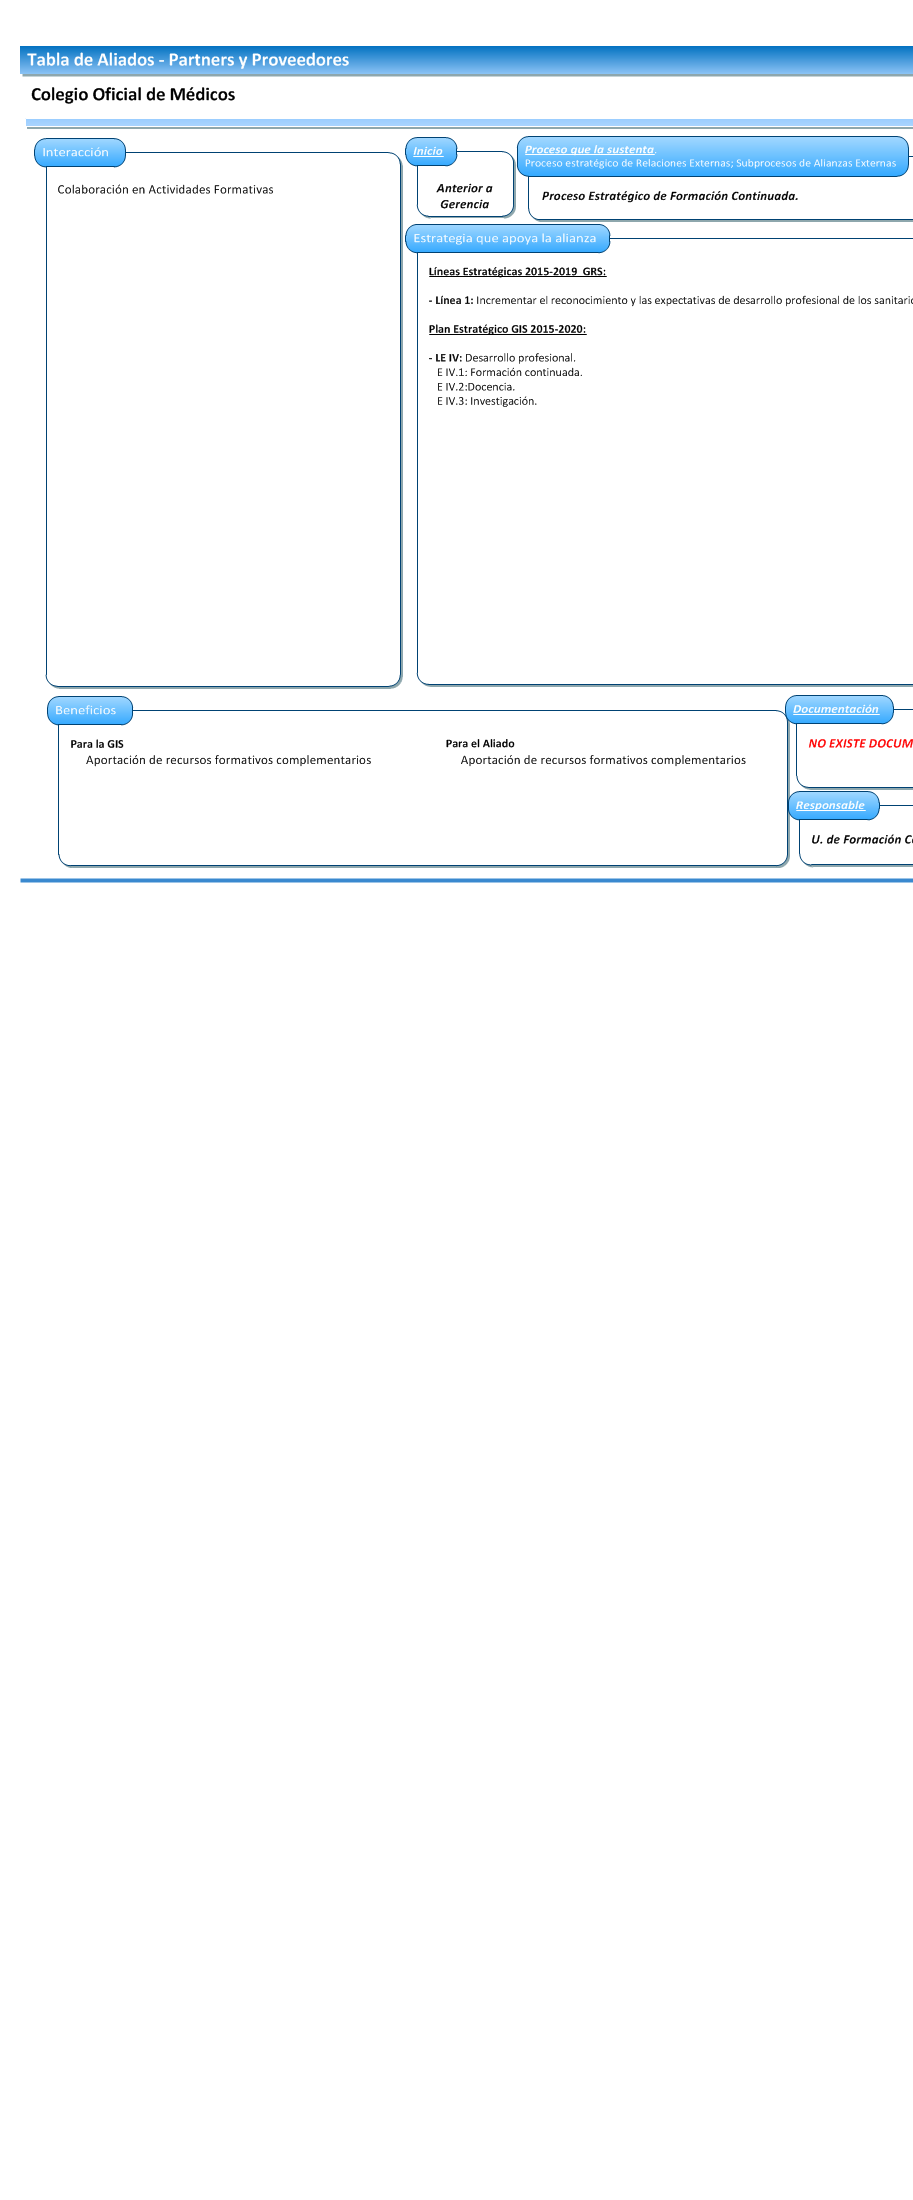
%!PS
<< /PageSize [913 2200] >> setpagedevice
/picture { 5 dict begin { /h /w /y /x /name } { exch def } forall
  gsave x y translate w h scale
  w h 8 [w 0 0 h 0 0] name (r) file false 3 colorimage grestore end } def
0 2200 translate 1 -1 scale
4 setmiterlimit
1 setgray
0 0 913 2200 rectfill
(img1.rgb) 20 46 893 837 picture
showpage
